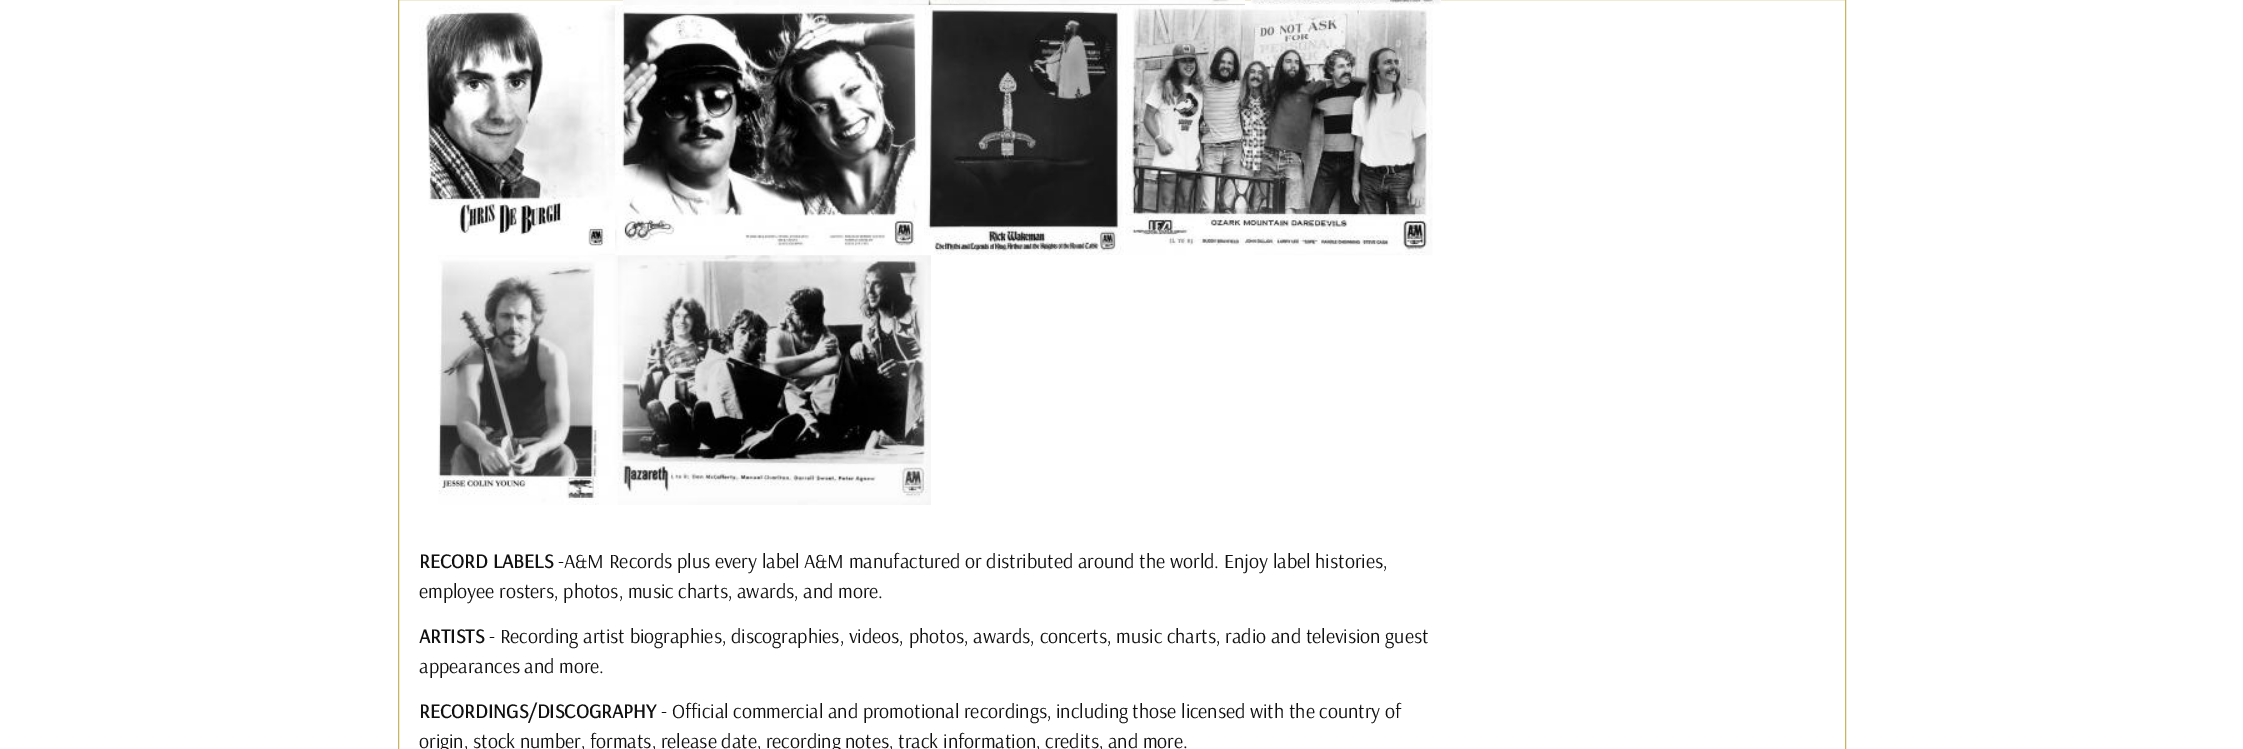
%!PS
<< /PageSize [2243 749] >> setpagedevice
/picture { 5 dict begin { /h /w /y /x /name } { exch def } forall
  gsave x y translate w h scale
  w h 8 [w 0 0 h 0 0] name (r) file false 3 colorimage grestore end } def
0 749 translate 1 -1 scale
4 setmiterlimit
1 setgray
0 0 2243 749 rectfill
0.784 0.71 0.376 setrgbcolor
398.5 -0.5 1447 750 rectstroke
(img1.rgb) 623 0 306 6 picture
(img2.rgb) 928 0 317 6 picture
(img3.rgb) 1251 0 190 6 picture
(img4.rgb) 419 5 196 250 picture
(img5.rgb) 615 5 307 250 picture
(img6.rgb) 924 5 201 250 picture
(img7.rgb) 1125 5 308 251 picture
(img8.rgb) 438 255 179 250 picture
(img9.rgb) 617 255 314 250 picture
/Arsenal-Bold [20 0 0 -20 0 0] selectfont
0.067 setgray
419 568 moveto (RECORD LABELS) show
/Arsenal-Regular [20 0 0 -20 0 0] selectfont
558 568 moveto (-A&M Records plus every label A&M manufactured or distributed around the world. Enjoy label histories,) show
419 598 moveto (employee rosters, photos, music charts, awards, and more.) show
/Arsenal-Bold [20 0 0 -20 0 0] selectfont
419 643 moveto (ARTISTS) show
/Arsenal-Regular [20 0 0 -20 0 0] selectfont
489 643 moveto (- Recording artist biographies, discographies, videos, photos, awards, concerts, music charts, radio and television guest) show
419 673 moveto (appearances and more.) show
/Arsenal-Bold [20 0 0 -20 0 0] selectfont
419 718 moveto (RECORDINGS/DISCOGRAPHY) show
/Arsenal-Regular [20 0 0 -20 0 0] selectfont
661 718 moveto (- Official commercial and promotional recordings, including those licensed with the country of) show
419 748 moveto (origin, stock number, formats, release date, recording notes, track information, credits, and more.) show
showpage
